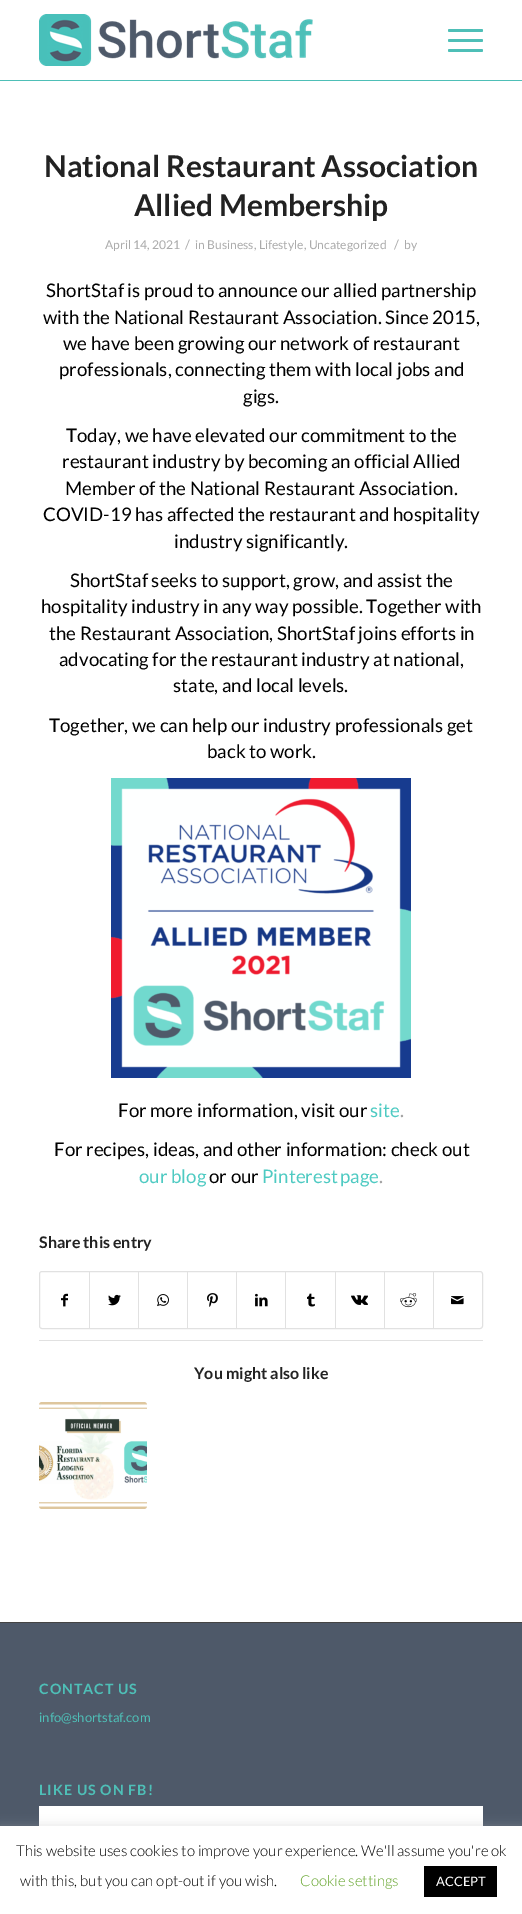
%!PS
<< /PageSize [522 1914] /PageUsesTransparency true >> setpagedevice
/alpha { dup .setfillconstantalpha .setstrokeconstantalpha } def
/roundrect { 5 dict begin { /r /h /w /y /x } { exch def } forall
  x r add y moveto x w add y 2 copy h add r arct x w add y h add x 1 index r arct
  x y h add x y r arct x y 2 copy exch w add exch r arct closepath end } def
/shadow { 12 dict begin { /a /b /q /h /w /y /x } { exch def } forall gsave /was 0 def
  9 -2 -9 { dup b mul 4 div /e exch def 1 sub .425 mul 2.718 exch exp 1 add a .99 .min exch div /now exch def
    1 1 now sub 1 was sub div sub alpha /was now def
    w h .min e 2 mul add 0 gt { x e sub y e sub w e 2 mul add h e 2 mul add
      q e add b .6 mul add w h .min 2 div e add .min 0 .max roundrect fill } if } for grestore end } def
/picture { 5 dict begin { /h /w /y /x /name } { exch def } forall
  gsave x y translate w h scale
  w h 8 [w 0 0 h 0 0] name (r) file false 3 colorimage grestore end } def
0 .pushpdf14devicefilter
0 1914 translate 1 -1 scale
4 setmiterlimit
1 setgray
0 0 522 1914 rectfill
0.306 0.749 0.718 setrgbcolor
0 80 522 1 rectfill
(img1.rgb) 39 14 274 52 picture
448 39 35 3 1.5 roundrect fill
448 29 35 3 1.5 roundrect fill
448 49 35 3 1.5 roundrect fill
/Lato-Bold [30 0 0 -30 0 0] selectfont
0.133 setgray
44 177 moveto (National Restaurant Association) show
134 216 moveto (Allied Membership) show
/Lato-Regular [12.1 0 0 -12.1 0 0] selectfont
0.671 setgray
105 249 moveto (April 14, 2021) show
/Lato-Regular [13 0 0 -13 0 0] selectfont
185 249 moveto (/) show
/Lato-Regular [12.1 0 0 -12.1 0 0] selectfont
195 249 moveto (in Business, Lifestyle, Uncategorized) show
/Lato-Regular [13 0 0 -13 0 0] selectfont
394 249 moveto (/) show
/Lato-Regular [12.1 0 0 -12.1 0 0] selectfont
404 249 moveto (by) show
/Lato-Regular [18.7 0 0 -18.7 0 0] selectfont
0 setgray
46 297 moveto (ShortStaf is proud to announce our allied partnership) show
43 324 moveto (with the National Restaurant Association. Since 2015,) show
63 350 moveto (we have been growing our network of restaurant) show
59 376 moveto (professionals, connecting them with local jobs and) show
243 403 moveto (gigs.) show
66 442 moveto (Today, we have elevated our commitment to the) show
62 468 moveto (restaurant industry by becoming an official Allied) show
65 495 moveto (Member of the National Restaurant Association.) show
43 521 moveto (COVID-19 has affected the restaurant and hospitality) show
174 548 moveto (industry significantly.) show
70 587 moveto (ShortStaf seeks to support, grow, and assist the) show
41 613 moveto (hospitality industry in any way possible. Together with) show
49 640 moveto (the Restaurant Association, ShortStaf joins efforts in) show
59 666 moveto (advocating for the restaurant industry at national,) show
173 692 moveto (state, and local levels.) show
49 732 moveto (Together, we can help our industry professionals get) show
207 758 moveto (back to work.) show
(img2.rgb) 111 778 300 300 picture
118 1117 moveto (For more information, visit our) show
0.306 0.792 0.761 setrgbcolor
370 1117 moveto (site) show
0.616 setgray
400 1117 moveto (.) show
0 setgray
54 1156 moveto (For recipes, ideas, and other information: check out) show
0.306 0.792 0.761 setrgbcolor
139 1183 moveto (our blog) show
0 setgray
209 1183 moveto (or our) show
0.306 0.792 0.761 setrgbcolor
262 1183 moveto (Pinterest) show
340 1183 moveto (page) show
0.616 setgray
379 1183 moveto (.) show
/Lato-Bold [16 0 0 -16 0 0] selectfont
0.133 setgray
39 1248 moveto (Share this entry) show
0.882 setgray
39.5 1271.5 443 57 2.5 roundrect stroke
(img3.rgb) 61 1293 7 14 picture
89 1272 1 56 rectfill
(img4.rgb) 108 1294 13 12 picture
138 1272 1 56 rectfill
(img5.rgb) 157 1294 12 13 picture
187 1272 1 56 rectfill
(img6.rgb) 207 1293 11 14 picture
236 1272 1 56 rectfill
(img7.rgb) 255 1293 13 14 picture
285 1272 1 56 rectfill
(img8.rgb) 307 1293 8 14 picture
335 1272 1 56 rectfill
(img9.rgb) 351 1295 17 10 picture
384 1272 1 56 rectfill
(img10.rgb) 400 1293 17 15 picture
433 1272 1 56 rectfill
(img11.rgb) 451 1296 13 9 picture
39 1340 444 1 rectfill
0.133 setgray
194 1379 moveto (You might also like) show
(img12.rgb) 39 1402 108 107 picture
0.306 0.349 0.412 setrgbcolor
0 1623 522 203 rectfill
0.267 setgray
0 1622 522 1 rectfill
/Lato-Bold [14.25 0 0 -14.25 0 0] selectfont
0.306 0.749 0.718 setrgbcolor
39 1694 moveto 1 0 (CONTACT US) ashow
/Lato-Regular [13 0 0 -13 0 0] selectfont
39 1722 moveto (info@shortstaf.com) show
/Lato-Bold [14.25 0 0 -14.25 0 0] selectfont
39 1795 moveto 1 0 (LIKE US ON FB!) ashow
1 setgray
39 1806 444 20 rectfill
0.675 0.671 0.671 setrgbcolor
0 1825 522 88 0 5 0.3 shadow
1 setgray
0 1826 522 88 rectfill
/Lato-Light [15 0 0 -15 0 0] selectfont
0 setgray
16 1856 moveto (This website uses cookies to improve your experience. We'll assume you're ok) show
20 1886 moveto (with this, but you can opt-out if you wish.) show
0.384 0.639 0.161 setrgbcolor
300 1886 moveto (Cookie settings) show
0 setgray
424 1866 73 31 rectfill
/Lato-Regular [13 0 0 -13 0 0] selectfont
1 setgray
436 1886 moveto (ACCEPT) show
.poppdf14devicefilter showpage
